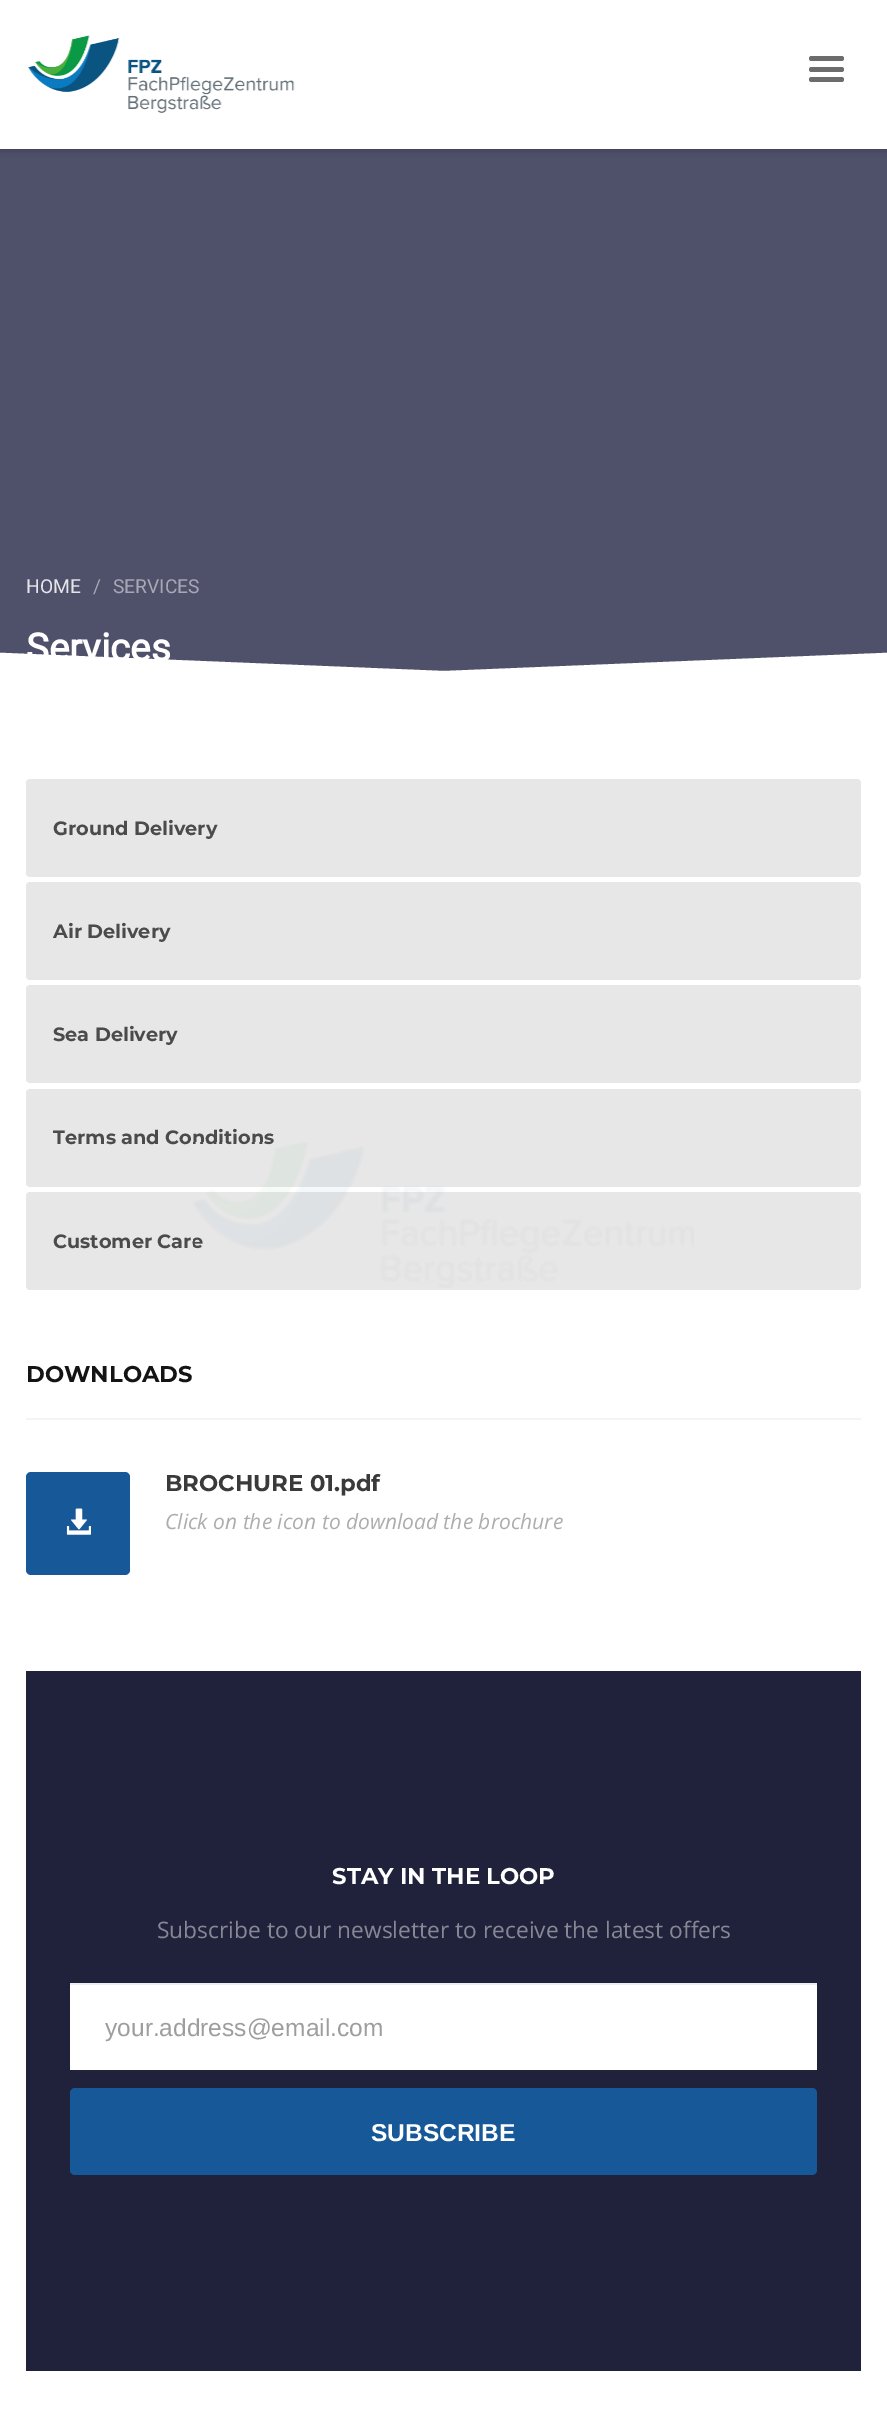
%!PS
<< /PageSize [887 2426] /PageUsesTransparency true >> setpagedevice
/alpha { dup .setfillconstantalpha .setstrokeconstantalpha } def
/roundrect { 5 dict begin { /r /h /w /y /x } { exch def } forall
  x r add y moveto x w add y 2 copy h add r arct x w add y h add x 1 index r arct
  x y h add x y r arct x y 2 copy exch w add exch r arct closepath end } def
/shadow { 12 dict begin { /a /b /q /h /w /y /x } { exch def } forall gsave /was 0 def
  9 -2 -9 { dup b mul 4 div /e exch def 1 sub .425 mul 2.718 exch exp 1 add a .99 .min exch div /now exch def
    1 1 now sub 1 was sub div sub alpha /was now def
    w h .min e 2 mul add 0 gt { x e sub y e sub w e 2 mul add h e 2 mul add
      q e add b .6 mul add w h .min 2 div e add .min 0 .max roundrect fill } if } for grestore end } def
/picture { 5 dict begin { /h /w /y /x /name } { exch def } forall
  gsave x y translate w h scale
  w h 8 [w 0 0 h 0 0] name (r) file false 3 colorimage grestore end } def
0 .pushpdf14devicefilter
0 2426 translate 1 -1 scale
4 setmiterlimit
1 setgray
0 0 887 2426 rectfill
0.31 0.314 0.416 setrgbcolor
0 149 887 522 rectfill
0.039 setgray
0 0 887 149 0 4.5 0.25 shadow
1 setgray
0 0 887 149 rectfill
(img1.rgb) 28 35 267 78 picture
0.424 setgray
809 56 35 5 2.5 roundrect fill
809 67 35 5 2.5 roundrect fill
809 77 35 5 2.5 roundrect fill
/Roboto-Regular [19.25 0 0 -19.25 0 0] selectfont
0.898 0.898 0.914 setrgbcolor
26 593 moveto (HOME) show
0.659 0.659 0.71 setrgbcolor
93 593 moveto (/) show
113 593 moveto (SERVICES) show
/Roboto-Bold [38.5 0 0 -38.5 0 0] selectfont
1 setgray
26 661 moveto (Services) show
newpath -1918 674 moveto -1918 574 lineto 444 671 lineto 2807 574 lineto 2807 674 lineto closepath fill
0.906 setgray
26 779 835 98 4 roundrect fill
/Montserrat-Bold [19.25 0 0 -19.25 0 0] selectfont
0.294 setgray
53 835 moveto (Ground Delivery) show
0.906 setgray
26 882 835 98 4 roundrect fill
0.294 setgray
53 938 moveto (Air Delivery) show
0.906 setgray
26 985 835 98 4 roundrect fill
0.294 setgray
53 1041 moveto (Sea Delivery) show
0.906 setgray
26 1089 835 98 4 roundrect fill
0.294 setgray
53 1144 moveto (Terms and Conditions) show
0.906 setgray
26 1192 835 98 4 roundrect fill
0.294 setgray
53 1248 moveto (Customer Care) show
/Montserrat-Bold [22.75 0 0 -22.75 0 0] selectfont
0.078 setgray
26 1382 moveto (DOWNLOADS) show
0.957 setgray
26 1418 835 2 rectfill
0.09 0.345 0.6 setrgbcolor
26 1472 104 103 5 roundrect fill
(img2.rgb) 66 1508 25 27 picture
0.227 setgray
165 1491 moveto (BROCHURE 01.pdf) show
/OpenSans-Italic [21 0 0 -21 0 0] selectfont
0.678 setgray
165 1529 moveto (Click on the icon to download the brochure) show
0.125 0.133 0.231 setrgbcolor
26 1671 835 700 rectfill
/Montserrat-Bold [22.75 0 0 -22.75 0 0] selectfont
1 setgray
332 1884 moveto (STAY IN THE LOOP) show
/OpenSans-Regular [22.75 0 0 -22.75 0 0] selectfont
0.529 0.533 0.584 setrgbcolor
157 1938 moveto (Subscribe to our newsletter to receive the latest offers) show
1 setgray
70 1985 747 85 rectfill
0.929 setgray
70 1983 747 2 rectfill
/LiberationSans-Regular [24.5 0 0 -24.5 0 0] selectfont
0.616 setgray
105 2036 moveto (your.address@email.com) show
0.09 0.345 0.6 setrgbcolor
70 2088 747 87 5 roundrect fill
/LiberationSans-Bold [24.5 0 0 -24.5 0 0] selectfont
1 setgray
371 2141 moveto (SUBSCRIBE) show
(img3.rgb) 193 1142 501 146 picture
.poppdf14devicefilter showpage
